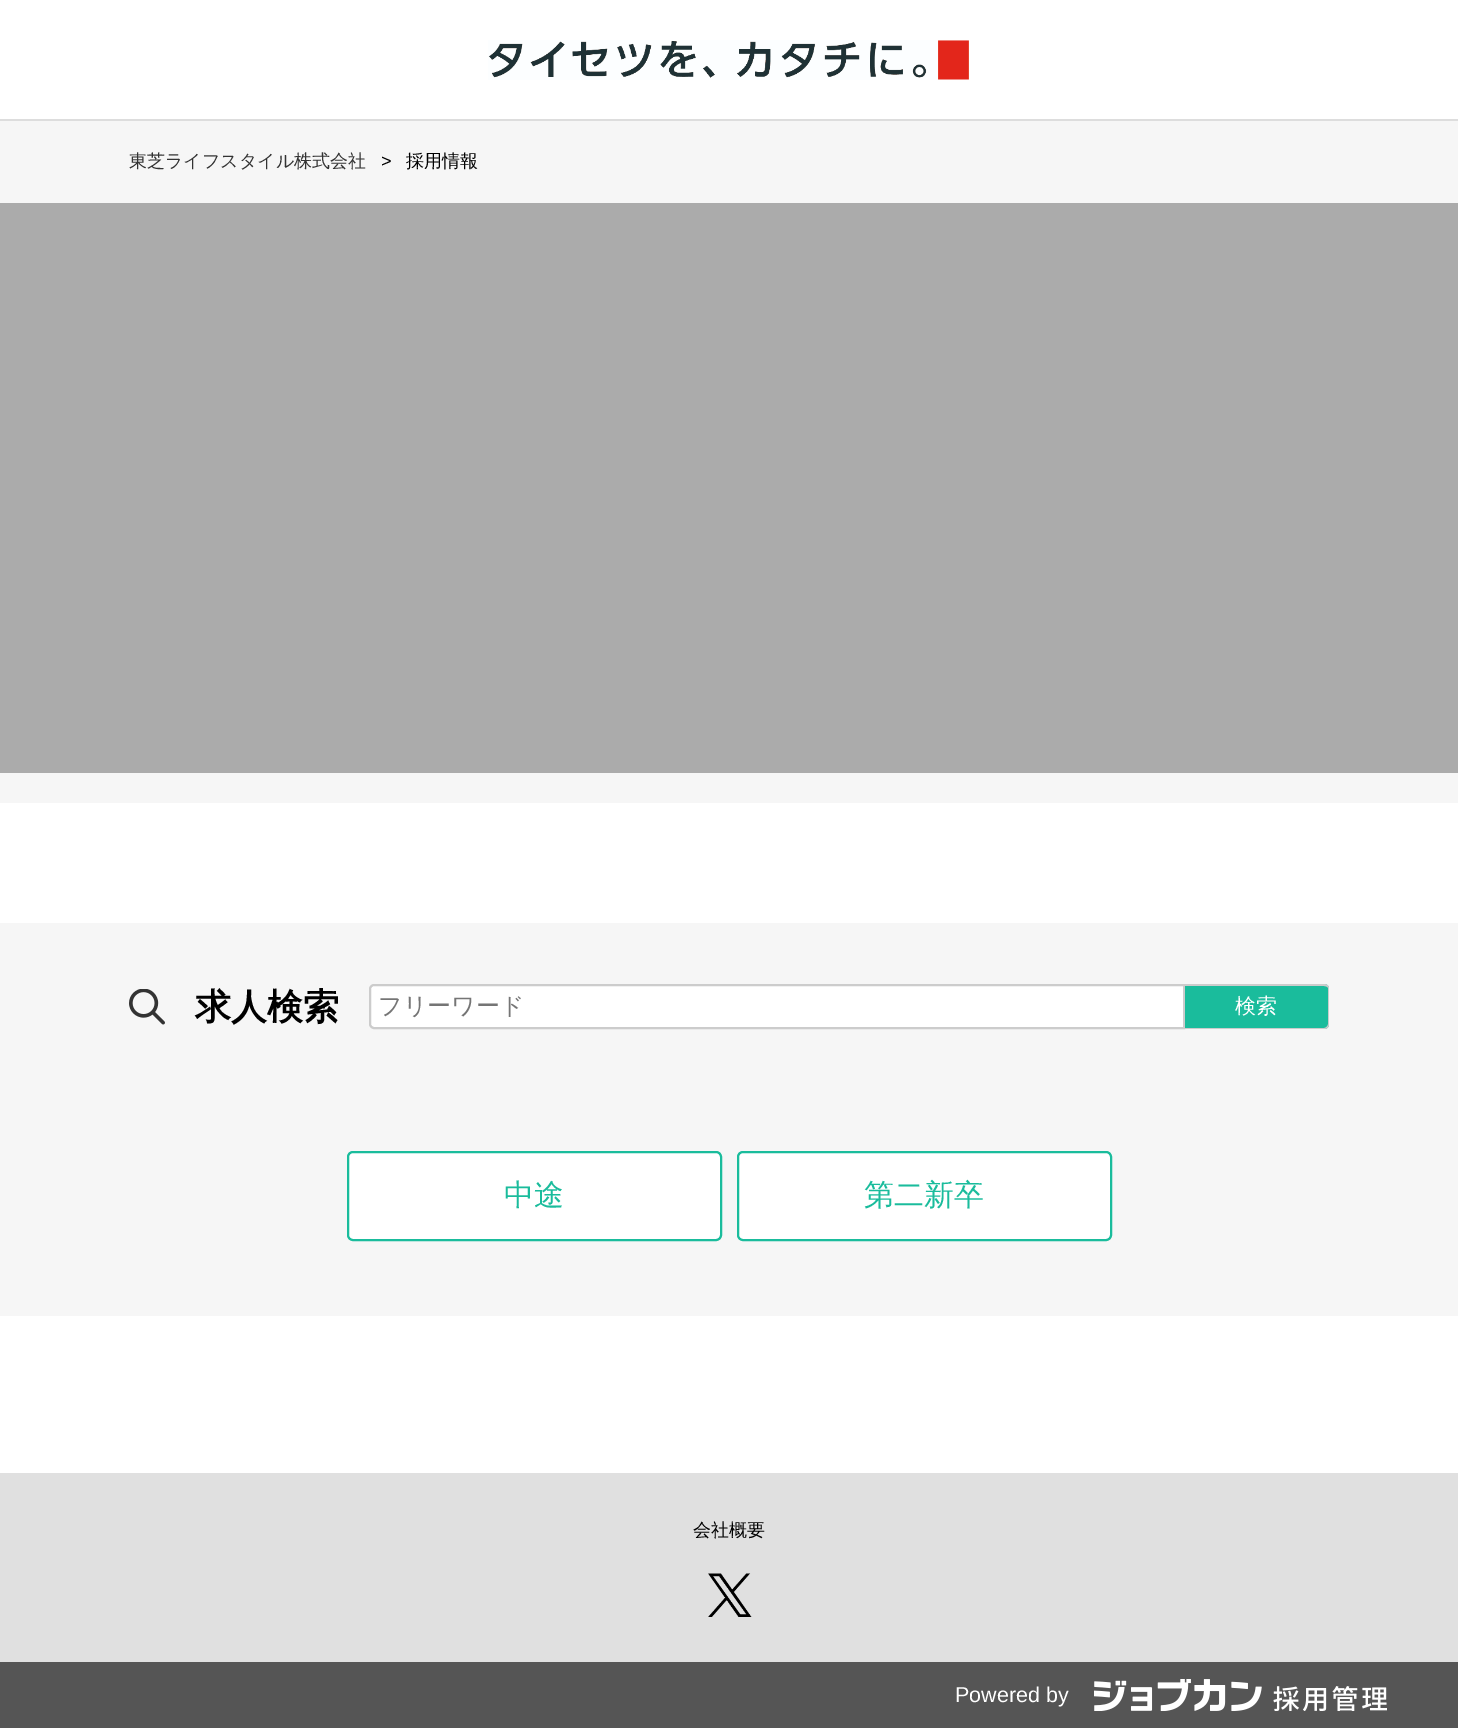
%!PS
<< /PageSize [1458 1728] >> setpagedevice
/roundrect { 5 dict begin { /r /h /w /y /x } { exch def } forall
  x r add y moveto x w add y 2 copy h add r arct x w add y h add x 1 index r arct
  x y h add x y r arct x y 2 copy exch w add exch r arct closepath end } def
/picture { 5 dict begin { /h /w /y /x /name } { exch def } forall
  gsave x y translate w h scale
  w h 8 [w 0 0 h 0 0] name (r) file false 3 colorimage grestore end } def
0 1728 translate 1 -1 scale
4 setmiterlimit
1 setgray
0 0 1458 1728 rectfill
0.867 setgray
0 119 1458 2 rectfill
(img1.rgb) 488 40 481 40 picture
0.965 setgray
0 121 1458 682 rectfill
/WenQuanYiZenHei-Medium [18 0 0 -18 0 0] selectfont
0.2 setgray
129 167 moveto (東芝ライフスタイル株式会社) show
/LiberationSans-Regular [18 0 0 -18 0 0] selectfont
0 setgray
381 167 moveto (>) show
/WenQuanYiZenHei-Medium [18 0 0 -18 0 0] selectfont
406 167 moveto (採用情報) show
0.671 setgray
0 203 1458 570 rectfill
0.965 setgray
0 923 1458 393 rectfill
(img2.rgb) 129 989 36 36 picture
/WenQuanYiZenHei-Bold [36 0 0 -36 0 0] selectfont
0 setgray
195 1019 moveto (求人検索) show
1 setgray
newpath 374 985 moveto 1184 985 lineto 1184 1028 lineto 374 1028 lineto 372 1028 370 1026 370 1024 curveto 370 989 lineto 370 987 372 985 374 985 curveto closepath gsave fill grestore
0.8 setgray
2 setlinewidth
stroke
/WenQuanYiZenHei-Medium [24 0 0 -24 0 0] selectfont
0.459 setgray
378 1014 moveto (フリーワード) show
0.102 0.737 0.612 setrgbcolor
newpath 1185 984 moveto 1324 984 lineto 1327 984 1329 986 1329 989 curveto 1329 1024 lineto 1329 1027 1327 1029 1324 1029 curveto 1185 1029 lineto closepath fill
0.8 setgray
newpath 1185 984 moveto 1324 984 lineto 1327 984 1329 986 1329 988 curveto 1329 1024 lineto 1329 1027 1327 1029 1324 1029 curveto 1185 1029 lineto closepath 1185 986 moveto 1324 986 lineto 1326 986 1328 987 1328 988 curveto 1328 1024 lineto 1328 1026 1326 1028 1324 1028 curveto 1185 1028 lineto closepath eofill
/WenQuanYiZenHei-Medium [21 0 0 -21 0 0] selectfont
1 setgray
1235 1013 moveto (検索) show
348 1152 373 88 5 roundrect gsave fill grestore
0.102 0.737 0.612 setrgbcolor
stroke
/WenQuanYiZenHei-Medium [30 0 0 -30 0 0] selectfont
504 1205 moveto (中途) show
1 setgray
738 1152 373 88 5 roundrect gsave fill grestore
0.102 0.737 0.612 setrgbcolor
stroke
864 1205 moveto (第二新卒) show
0.878 setgray
0 1473 1458 189 rectfill
/WenQuanYiZenHei-Medium [18 0 0 -18 0 0] selectfont
0 setgray
693 1536 moveto (会社概要) show
(img3.rgb) 708 1573 44 44 picture
0.333 setgray
0 1662 1458 66 rectfill
/LiberationSans-Regular [21.5 0 0 -21.5 0 0] selectfont
1 setgray
955 1702 moveto (Powered by) show
(img4.rgb) 1094 1679 293 32 picture
showpage
